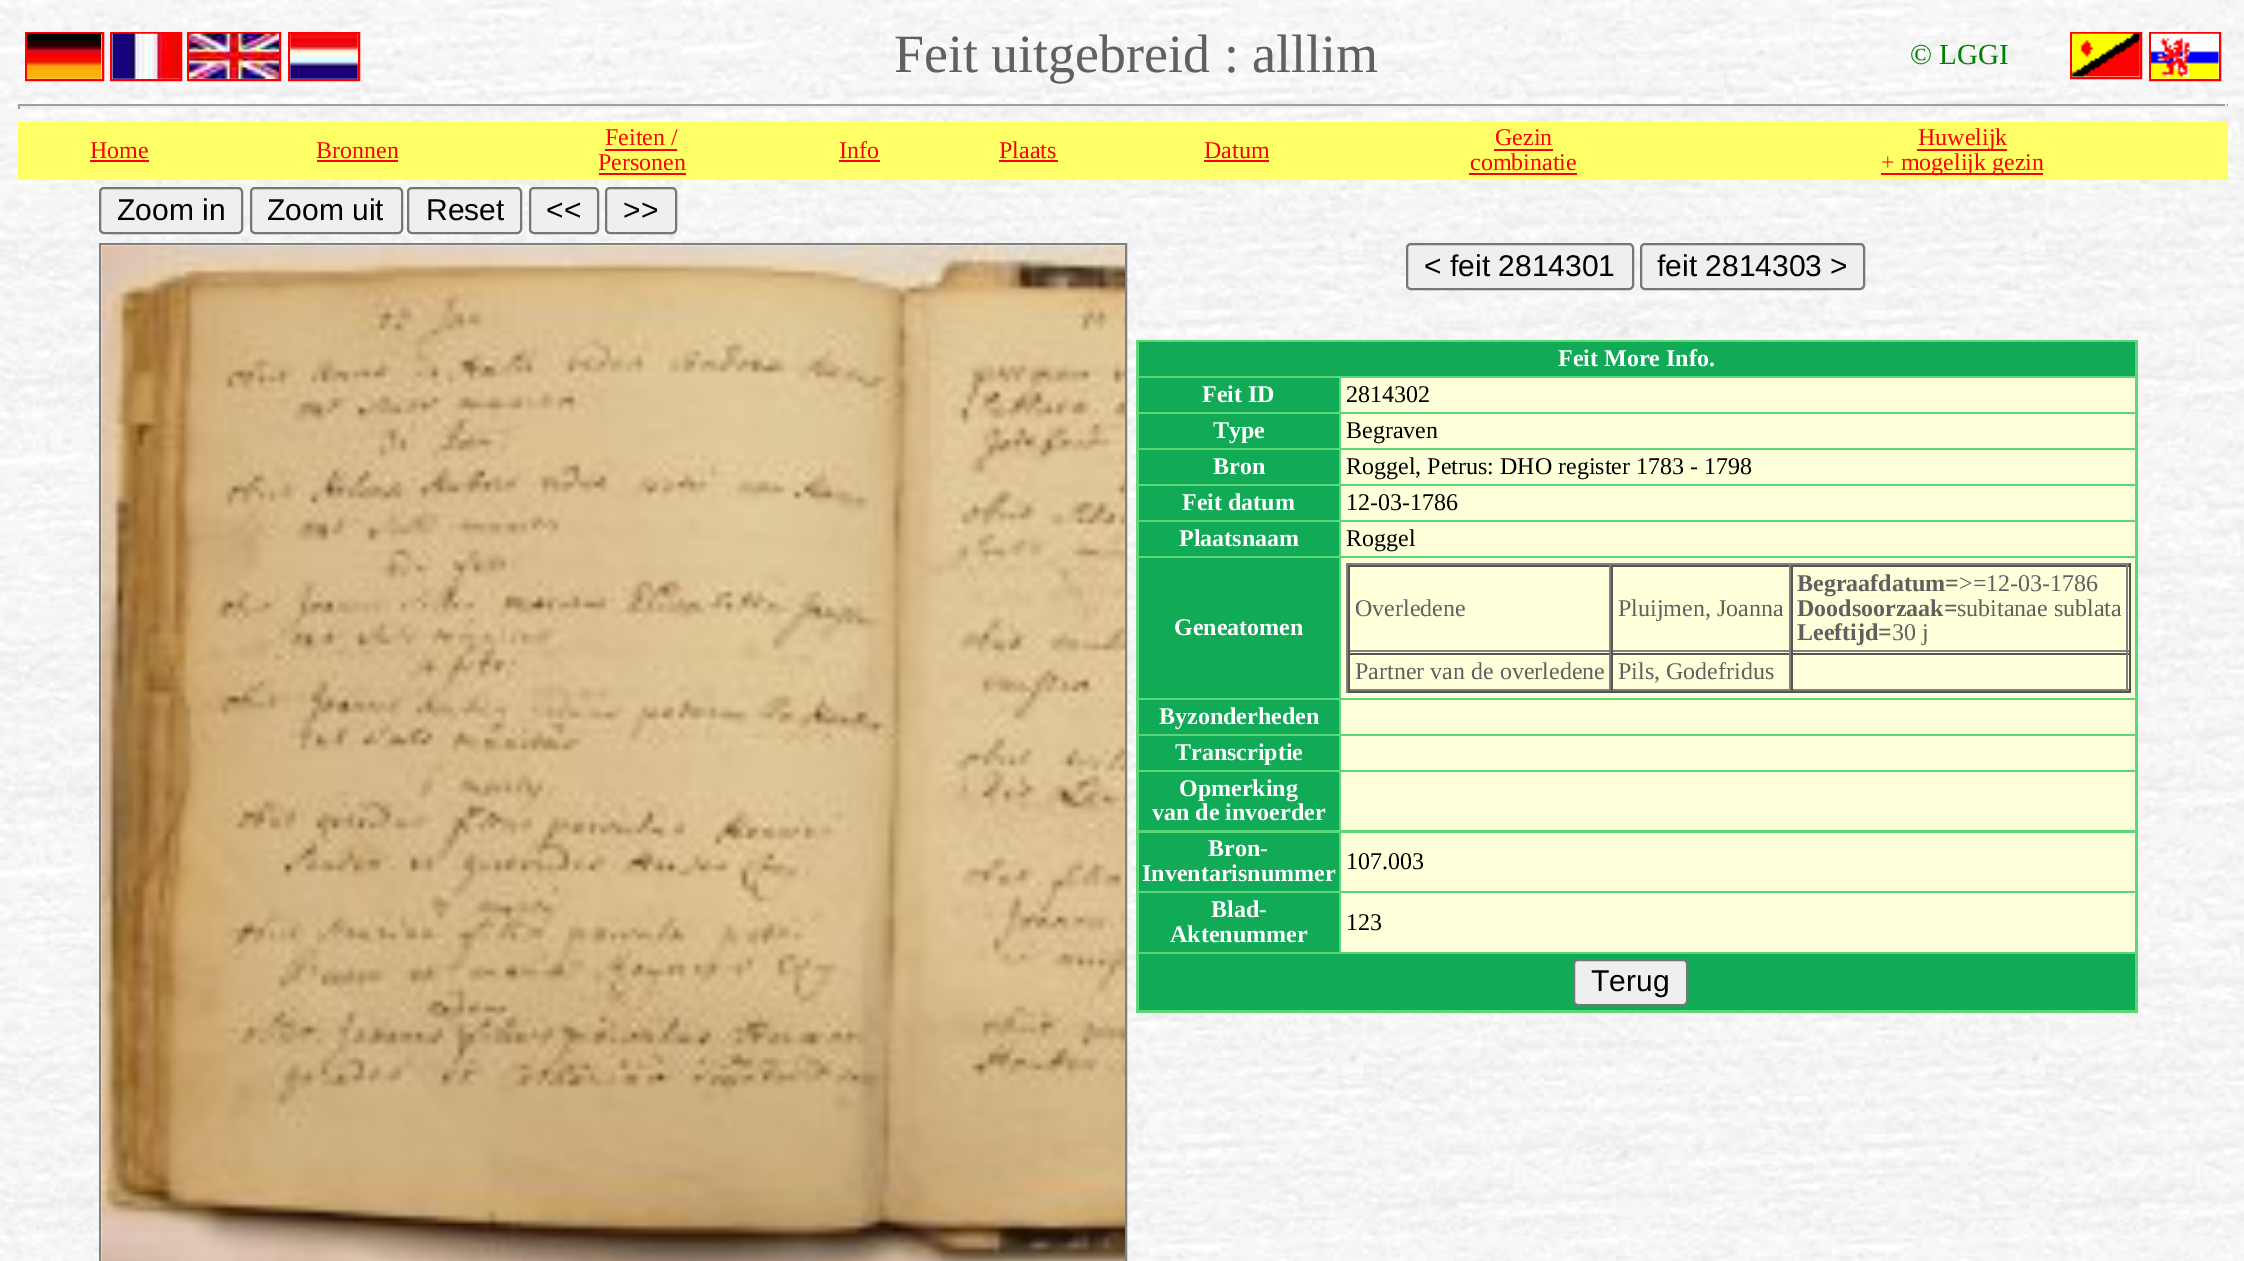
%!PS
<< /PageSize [2244 1261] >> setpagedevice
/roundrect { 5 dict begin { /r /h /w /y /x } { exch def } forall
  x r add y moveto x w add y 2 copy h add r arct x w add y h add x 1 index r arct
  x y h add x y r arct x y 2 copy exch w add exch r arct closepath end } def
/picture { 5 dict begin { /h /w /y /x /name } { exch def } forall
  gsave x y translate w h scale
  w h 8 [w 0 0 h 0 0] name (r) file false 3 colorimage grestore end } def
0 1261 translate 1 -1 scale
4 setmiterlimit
1 setgray
0 0 2244 1261 rectfill
(img1.rgb) 0 0 2244 1261 picture
1 0 0 setrgbcolor
2 setlinewidth
26 33 77 47 rectstroke
111 33 70 47 rectstroke
188 33 92 47 rectstroke
289 33 70 47 rectstroke
(img2.rgb) 27 33 75 46 picture
(img3.rgb) 112 33 68 46 picture
(img4.rgb) 189 33 90 46 picture
(img5.rgb) 290 33 68 46 picture
/LiberationSerif-Regular [54 0 0 -54 0 0] selectfont
0.376 setgray
894 72 moveto (Feit uitgebreid : alllim) show
/LiberationSerif-Regular [29 0 0 -29 0 0] selectfont
0 0.502 0 setrgbcolor
1910 64 moveto (© LGGI) show
1 0 0 setrgbcolor
2071 33 70 45 rectstroke
(img6.rgb) 2072 33 68 44 picture
2150 33 70 47 rectstroke
(img7.rgb) 2151 33 68 46 picture
0.624 setgray
18 104 2210 2 rectfill
0.933 setgray
2225 104 2 5 rectfill
18 106 2210 2 rectfill
0.624 setgray
18 104 2 5 rectfill
1 1 0.4 setrgbcolor
18 122 2210 58 rectfill
/LiberationSerif-Regular [24 0 0 -24 0 0] selectfont
1 0 0 setrgbcolor
90 158 moveto (Home) show
90 160 59 2 rectfill
316 158 moveto (Bronnen) show
317 160 81 2 rectfill
605 145 moveto (Feiten /) show
605 149 72 2 rectfill
598 170 moveto (Personen) show
599 173 87 2 rectfill
839 158 moveto (Info) show
839 160 41 2 rectfill
999 158 moveto (Plaats) show
999 160 59 2 rectfill
1204 158 moveto (Datum) show
1204 160 65 2 rectfill
1495 145 moveto (Gezin) show
1470 170 moveto (combinatie) show
1494 149 59 2 rectfill
1469 173 108 2 rectfill
1917 149 90 2 rectfill
1918 145 moveto (Huwelijk) show
1881 173 162 2 rectfill
1881 170 moveto (+ mogelijk gezin) show
0.937 setgray
100 188 142 45 4 roundrect gsave fill grestore
0.463 setgray
stroke
/LiberationSans-Regular [30 0 0 -30 0 0] selectfont
0 setgray
117 220 moveto (Zoom in) show
0.937 setgray
251 188 151 45 4 roundrect gsave fill grestore
0.463 setgray
stroke
0 setgray
267 220 moveto (Zoom uit) show
0.937 setgray
408 188 113 45 4 roundrect gsave fill grestore
0.463 setgray
stroke
0 setgray
426 220 moveto (Reset) show
0.937 setgray
530 188 68 45 4 roundrect gsave fill grestore
0.463 setgray
stroke
0 setgray
546 220 moveto (<<) show
0.937 setgray
606 188 70 45 4 roundrect gsave fill grestore
0.463 setgray
stroke
0 setgray
623 220 moveto (>>) show
0.502 setgray
100 244 1026 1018 rectstroke
(img8.rgb) 101 245 1024 1016 picture
0.937 setgray
1407 244 226 45 4 roundrect gsave fill grestore
0.463 setgray
stroke
0 setgray
1424 276 moveto (< feit 2814301) show
0.937 setgray
1641 244 223 45 4 roundrect gsave fill grestore
0.463 setgray
stroke
0 setgray
1657 276 moveto (feit 2814303 >) show
0.357 0.843 0.467 setrgbcolor
1136 340 1002 673 rectfill
0.067 0.667 0.337 setrgbcolor
1139 342 996 34 rectfill
/LiberationSerif-Bold [24 0 0 -24 0 0] selectfont
1 setgray
1558 366 moveto (Feit More Info.) show
0.067 0.667 0.337 setrgbcolor
1139 378 200 34 rectfill
1 setgray
1202 402 moveto (Feit ID) show
1 1 0.851 setrgbcolor
1341 378 794 34 rectfill
/LiberationSerif-Regular [24 0 0 -24 0 0] selectfont
0 setgray
1346 402 moveto (2814302) show
0.067 0.667 0.337 setrgbcolor
1139 414 200 34 rectfill
/LiberationSerif-Bold [24 0 0 -24 0 0] selectfont
1 setgray
1213 438 moveto (Type) show
1 1 0.851 setrgbcolor
1341 414 794 34 rectfill
/LiberationSerif-Regular [24 0 0 -24 0 0] selectfont
0 setgray
1346 438 moveto (Begraven) show
0.067 0.667 0.337 setrgbcolor
1139 450 200 34 rectfill
/LiberationSerif-Bold [24 0 0 -24 0 0] selectfont
1 setgray
1213 474 moveto (Bron) show
1 1 0.851 setrgbcolor
1341 450 794 34 rectfill
/LiberationSerif-Regular [24 0 0 -24 0 0] selectfont
0 setgray
1346 474 moveto (Roggel, Petrus: DHO register 1783 - 1798) show
0.067 0.667 0.337 setrgbcolor
1139 486 200 34 rectfill
/LiberationSerif-Bold [24 0 0 -24 0 0] selectfont
1 setgray
1182 510 moveto (Feit datum) show
1 1 0.851 setrgbcolor
1341 486 794 34 rectfill
/LiberationSerif-Regular [24 0 0 -24 0 0] selectfont
0 setgray
1346 510 moveto (12-03-1786) show
0.067 0.667 0.337 setrgbcolor
1139 522 200 34 rectfill
/LiberationSerif-Bold [24 0 0 -24 0 0] selectfont
1 setgray
1179 546 moveto (Plaatsnaam) show
1 1 0.851 setrgbcolor
1341 522 794 34 rectfill
/LiberationSerif-Regular [24 0 0 -24 0 0] selectfont
0 setgray
1346 546 moveto (Roggel) show
0.067 0.667 0.337 setrgbcolor
1139 558 200 140 rectfill
/LiberationSerif-Bold [24 0 0 -24 0 0] selectfont
1 setgray
1174 635 moveto (Geneatomen) show
1 1 0.851 setrgbcolor
1341 558 794 140 rectfill
0.502 setgray
1346 563 785 2 rectfill
0.333 setgray
2129 563 2 130 rectfill
1346 691 785 2 rectfill
0.502 setgray
1346 563 2 130 rectfill
0.333 setgray
1348 565 781 2 rectfill
0.502 setgray
1609 565 2 88 rectfill
1348 650 263 2 rectfill
0.333 setgray
1348 565 2 88 rectfill
/LiberationSerif-Regular [24 0 0 -24 0 0] selectfont
0.376 setgray
1355 616 moveto (Overledene) show
0.502 setgray
1789 565 2 88 rectfill
1611 650 180 2 rectfill
0.333 setgray
1611 565 2 88 rectfill
0.376 setgray
1618 616 moveto (Pluijmen, Joanna) show
0.502 setgray
2126 565 2 88 rectfill
1791 650 338 2 rectfill
0.333 setgray
1791 565 2 88 rectfill
/LiberationSerif-Bold [24 0 0 -24 0 0] selectfont
0.376 setgray
1797 591 moveto (Begraafdatum=) show
/LiberationSerif-Regular [24 0 0 -24 0 0] selectfont
1959 591 moveto (>=12-03-1786) show
/LiberationSerif-Bold [24 0 0 -24 0 0] selectfont
1797 616 moveto (Doodsoorzaak=) show
/LiberationSerif-Regular [24 0 0 -24 0 0] selectfont
1957 616 moveto (subitanae sublata) show
/LiberationSerif-Bold [24 0 0 -24 0 0] selectfont
1797 640 moveto (Leeftijd=) show
/LiberationSerif-Regular [24 0 0 -24 0 0] selectfont
1892 640 moveto (30 j) show
0.333 setgray
1348 653 781 2 rectfill
0.502 setgray
1609 653 2 38 rectfill
1348 689 263 2 rectfill
0.333 setgray
1348 653 2 38 rectfill
0.376 setgray
1355 679 moveto (Partner van de overledene) show
0.502 setgray
1789 653 2 38 rectfill
1611 689 180 2 rectfill
0.333 setgray
1611 653 2 38 rectfill
0.376 setgray
1618 679 moveto (Pils, Godefridus) show
0.502 setgray
2126 653 2 38 rectfill
1791 689 338 2 rectfill
0.333 setgray
1791 653 2 38 rectfill
0.067 0.667 0.337 setrgbcolor
1139 700 200 34 rectfill
/LiberationSerif-Bold [24 0 0 -24 0 0] selectfont
1 setgray
1159 724 moveto (Byzonderheden) show
1 1 0.851 setrgbcolor
1341 700 794 34 rectfill
0.067 0.667 0.337 setrgbcolor
1139 736 200 34 rectfill
1 setgray
1175 760 moveto (Transcriptie) show
1 1 0.851 setrgbcolor
1341 736 794 34 rectfill
0.067 0.667 0.337 setrgbcolor
1139 772 200 58 rectfill
1 setgray
1179 796 moveto (Opmerking) show
1152 820 moveto (van de invoerder) show
1 1 0.851 setrgbcolor
1341 772 794 58 rectfill
0.067 0.667 0.337 setrgbcolor
1139 833 200 58 rectfill
1 setgray
1208 856 moveto (Bron-) show
1142 881 moveto (Inventarisnummer) show
1 1 0.851 setrgbcolor
1341 833 794 58 rectfill
/LiberationSerif-Regular [24 0 0 -24 0 0] selectfont
0 setgray
1346 869 moveto (107.003) show
0.067 0.667 0.337 setrgbcolor
1139 893 200 59 rectfill
/LiberationSerif-Bold [24 0 0 -24 0 0] selectfont
1 setgray
1211 917 moveto (Blad-) show
1170 942 moveto (Aktenummer) show
1 1 0.851 setrgbcolor
1341 893 794 59 rectfill
/LiberationSerif-Regular [24 0 0 -24 0 0] selectfont
0 setgray
1346 930 moveto (123) show
0.067 0.667 0.337 setrgbcolor
1139 954 996 56 rectfill
0.937 setgray
1574 960 113 45 4 roundrect gsave fill grestore
0.463 setgray
stroke
/LiberationSans-Regular [30 0 0 -30 0 0] selectfont
0 setgray
1591 991 moveto (Terug) show
showpage
